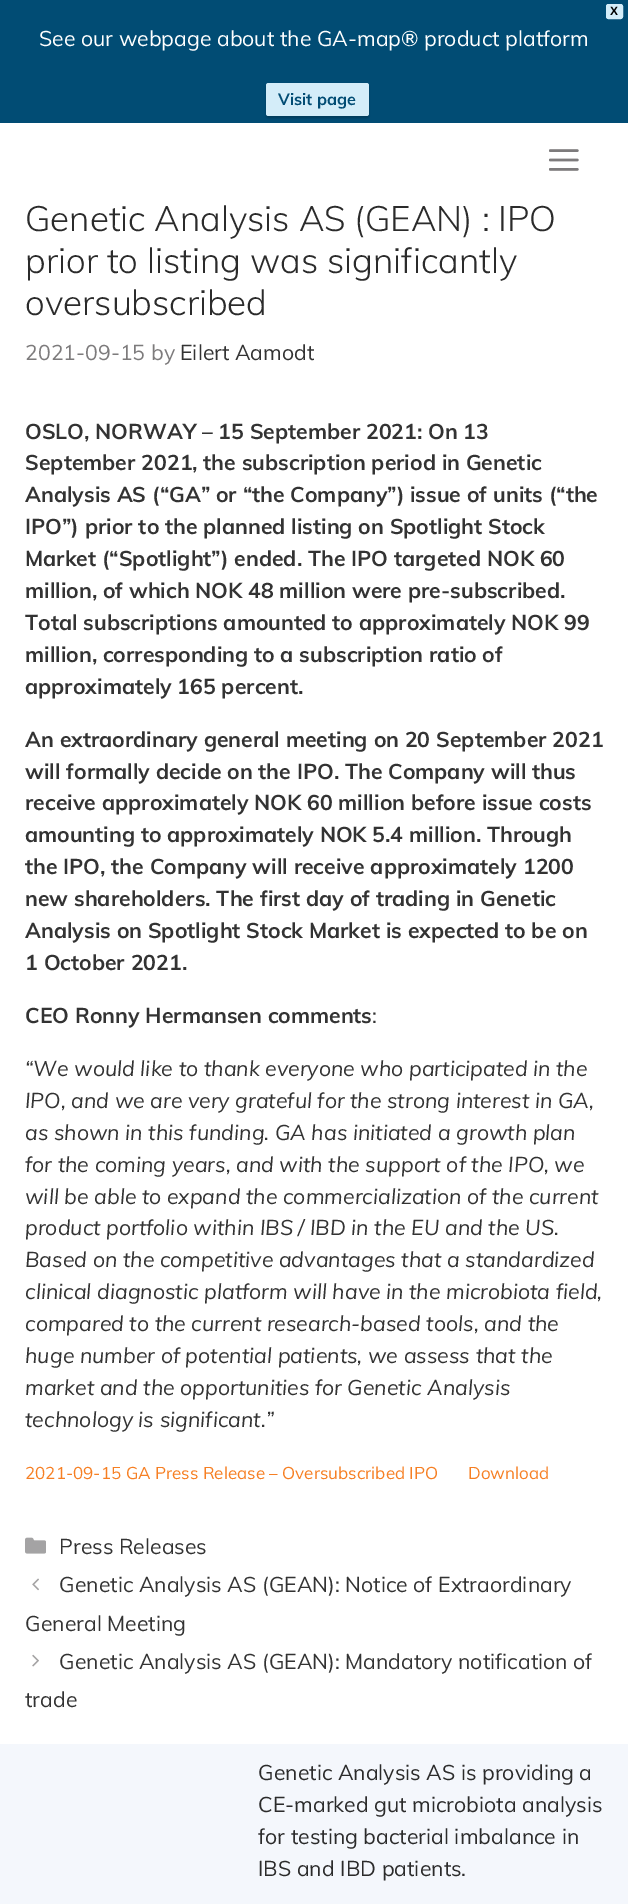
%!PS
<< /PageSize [628 1904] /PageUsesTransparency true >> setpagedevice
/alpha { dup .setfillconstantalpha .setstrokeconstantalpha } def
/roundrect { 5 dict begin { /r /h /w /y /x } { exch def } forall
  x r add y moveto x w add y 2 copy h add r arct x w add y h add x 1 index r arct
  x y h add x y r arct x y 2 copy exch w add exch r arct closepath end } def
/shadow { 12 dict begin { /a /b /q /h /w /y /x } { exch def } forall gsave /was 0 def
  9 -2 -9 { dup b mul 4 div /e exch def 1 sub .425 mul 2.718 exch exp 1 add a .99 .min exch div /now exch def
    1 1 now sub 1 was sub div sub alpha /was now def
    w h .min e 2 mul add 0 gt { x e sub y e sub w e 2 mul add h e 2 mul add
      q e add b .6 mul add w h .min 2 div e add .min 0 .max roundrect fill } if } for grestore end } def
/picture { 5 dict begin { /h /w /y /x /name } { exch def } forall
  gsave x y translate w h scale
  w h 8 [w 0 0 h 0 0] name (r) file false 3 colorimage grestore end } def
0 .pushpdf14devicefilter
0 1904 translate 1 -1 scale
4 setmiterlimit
1 setgray
0 0 628 1904 rectfill
0.004 0.298 0.455 setrgbcolor
0 0 628 123 rectfill
0.831 0.929 0.976 setrgbcolor
606.5 4.5 16 14 2 roundrect gsave fill grestore
stroke
/LiberationSans-Bold [12 0 0 -12 0 0] selectfont
0 setgray
610 15 moveto (X) show
/Muli-Regular [21.25 0 0 -21.25 0 0] selectfont
1 setgray
39 46 moveto (See our webpage about the GA-map® product platform) show
0 setgray
266 84 103 34 2.5 1 0.2 shadow
0.831 0.929 0.976 setrgbcolor
266 83 103 33 2.5 roundrect fill
/Muli-Bold [16.25 0 0 -16.25 0 0] selectfont
0.004 0.298 0.455 setrgbcolor
278 105 moveto (Visit page) show
(img1.rgb) 549 149 30 22 picture
/Muli-Light [35 0 0 -35 0 0] selectfont
0.169 setgray
25 231 moveto (Genetic Analysis AS \(GEAN\) : IPO) show
25 273 moveto (prior to listing was significantly) show
25 315 moveto (oversubscribed) show
/Muli-Regular [21.25 0 0 -21.25 0 0] selectfont
0.49 0.482 0.486 setrgbcolor
25 360 moveto (2021-09-15 by) show
0.2 setgray
180 360 moveto (Eilert Aamodt) show
/Muli-Bold [21.25 0 0 -21.25 0 0] selectfont
25 439 moveto (OSLO, NORWAY – 15 September 2021: On 13) show
25 470 moveto (September 2021, the subscription period in Genetic) show
25 502 moveto (Analysis AS \(“GA” or “the Company”\) issue of units \(“the) show
25 534 moveto (IPO”\) prior to the planned listing on Spotlight Stock) show
25 566 moveto (Market \(“Spotlight”\) ended. The IPO targeted NOK 60) show
25 598 moveto (million, of which NOK 48 million were pre-subscribed.) show
25 630 moveto (Total subscriptions amounted to approximately NOK 99) show
25 662 moveto (million, corresponding to a subscription ratio of) show
25 694 moveto (approximately 165 percent.) show
25 747 moveto (An extraordinary general meeting on 20 September 2021) show
25 779 moveto (will formally decide on the IPO. The Company will thus) show
25 810 moveto (receive approximately NOK 60 million before issue costs) show
25 842 moveto (amounting to approximately NOK 5.4 million. Through) show
25 874 moveto (the IPO, the Company will receive approximately 1200) show
25 906 moveto (new shareholders. The first day of trading in Genetic) show
25 938 moveto (Analysis on Spotlight Stock Market is expected to be on) show
25 970 moveto (1 October 2021.) show
25 1023 moveto (CEO Ronny Hermansen comments) show
/Muli-Regular [21.25 0 0 -21.25 0 0] selectfont
372 1023 moveto (:) show
/Muli-Italic [21.25 0 0 -21.25 0 0] selectfont
25 1076 moveto (“We would like to thank everyone who participated in the) show
25 1108 moveto (IPO, and we are very grateful for the strong interest in GA,) show
25 1140 moveto (as shown in this funding. GA has initiated a growth plan) show
25 1172 moveto (for the coming years, and with the support of the IPO, we) show
25 1204 moveto (will be able to expand the commercialization of the current) show
25 1235 moveto (product portfolio within IBS / IBD in the EU and the US.) show
25 1267 moveto (Based on the competitive advantages that a standardized) show
25 1299 moveto (clinical diagnostic platform will have in the microbiota field,) show
25 1331 moveto (compared to the current research-based tools, and the) show
25 1363 moveto (huge number of potential patients, we assess that the) show
25 1395 moveto (market and the opportunities for Genetic Analysis) show
25 1427 moveto (technology is significant.”) show
/Muli-Regular [17 0 0 -17 0 0] selectfont
0.965 0.498 0.137 setrgbcolor
25 1479 moveto (2021-09-15 GA Press Release – Oversubscribed IPO) show
468 1479 moveto (Download) show
(img2.rgb) 25 1537 21 17 picture
/Muli-Regular [21.25 0 0 -21.25 0 0] selectfont
0.2 setgray
59 1554 moveto (Press Releases) show
(img3.rgb) 32 1578 7 13 picture
59 1592 moveto (Genetic Analysis AS \(GEAN\): Notice of Extraordinary) show
25 1631 moveto (General Meeting) show
(img4.rgb) 32 1654 7 13 picture
59 1669 moveto (Genetic Analysis AS \(GEAN\): Mandatory notification of) show
25 1707 moveto (trade) show
0.957 0.969 0.988 setrgbcolor
0 1744 628 160 rectfill
0.169 setgray
258 1780 moveto (Genetic Analysis AS is providing a) show
258 1812 moveto (CE-marked gut microbiota analysis) show
258 1844 moveto (for testing bacterial imbalance in) show
258 1876 moveto (IBS and IBD patients.) show
.poppdf14devicefilter showpage
